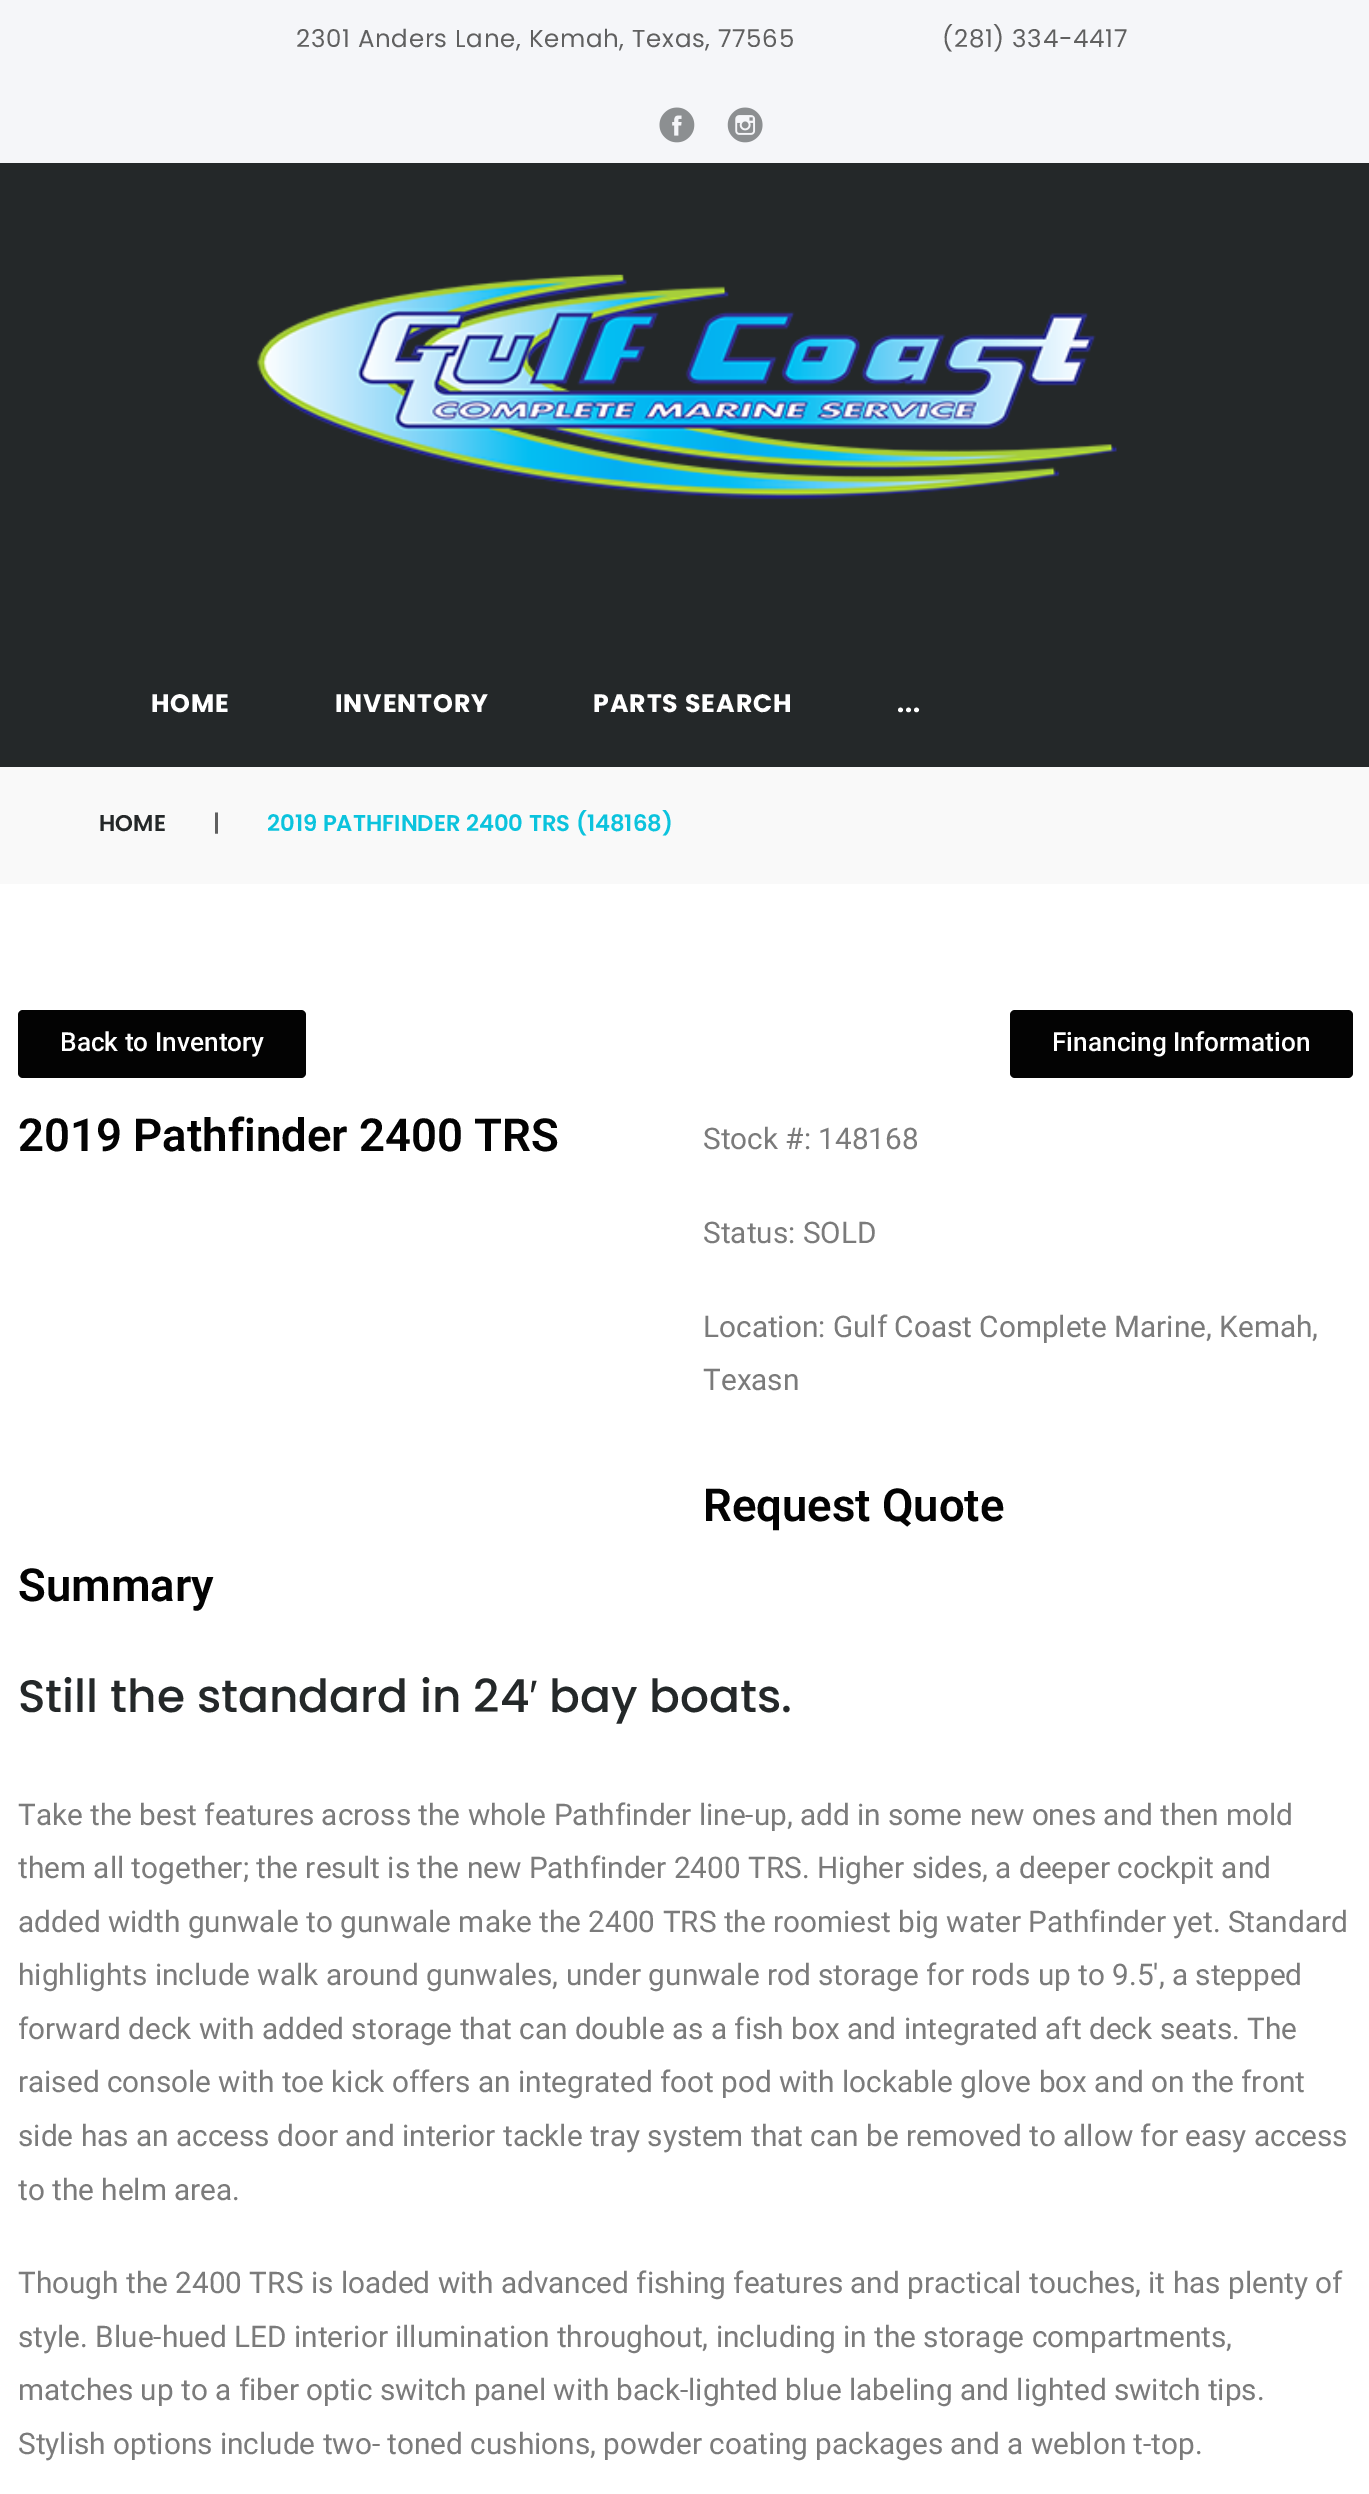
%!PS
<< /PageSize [1369 2494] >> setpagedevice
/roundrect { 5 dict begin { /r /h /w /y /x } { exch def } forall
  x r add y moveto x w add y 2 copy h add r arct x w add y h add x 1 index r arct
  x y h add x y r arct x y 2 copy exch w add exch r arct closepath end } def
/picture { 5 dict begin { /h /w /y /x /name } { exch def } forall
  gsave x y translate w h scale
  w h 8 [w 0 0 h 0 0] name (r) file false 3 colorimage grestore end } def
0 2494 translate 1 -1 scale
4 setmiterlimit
1 setgray
0 0 1369 2494 rectfill
0.961 0.965 0.976 setrgbcolor
0 0 1369 163 rectfill
/Poppins-Regular [24.5 0 0 -24.5 0 0] selectfont
0.376 setgray
296 47 moveto 0.7 0 (2301 Anders Lane, Kemah, Texas, 77565) ashow
942 47 moveto 0.7 0 (\(281\) 334-4417) ashow
(img1.rgb) 659 107 36 36 picture
(img2.rgb) 727 107 36 36 picture
0.141 0.157 0.161 setrgbcolor
0 163 1369 604 rectfill
(img3.rgb) 256 274 861 226 picture
/Poppins-Bold [25.25 0 0 -25.25 0 0] selectfont
1 setgray
151 712 moveto 0.9 0 (HOME) ashow
335 712 moveto 0.9 0 (INVENTORY) ashow
593 712 moveto 0.9 0 (PARTS SEARCH) ashow
897 712 moveto 0.9 0 (...) ashow
0.976 setgray
0 767 1369 117 rectfill
/Poppins-SemiBold [22.75 0 0 -22.75 0 0] selectfont
0.141 0.157 0.161 setrgbcolor
99 831 moveto (HOME) show
0.376 setgray
213 831 moveto (|) show
0.043 0.765 0.867 setrgbcolor
267 831 moveto (2019 PATHFINDER 2400 TRS \(148168\)) show
0.012 setgray
18 1010 288 68 5 roundrect fill
/Roboto-Medium [26.25 0 0 -26.25 0 0] selectfont
1 setgray
60 1051 moveto (Back to Inventory) show
0.012 setgray
1010 1010 343 68 5 roundrect fill
1 setgray
1052 1051 moveto (Financing Information) show
/Roboto-SemiBold [45.5 0 0 -45.5 0 0] selectfont
0.012 setgray
18 1151 moveto (2019 Pathfinder 2400 TRS) show
/Roboto-Regular [29.75 0 0 -29.75 0 0] selectfont
0.482 setgray
703 1149 moveto (Stock #: 148168) show
703 1243 moveto (Status: SOLD) show
703 1337 moveto (Location: Gulf Coast Complete Marine, Kemah,) show
703 1390 moveto (Texasn) show
/Roboto-SemiBold [45.5 0 0 -45.5 0 0] selectfont
0.012 setgray
703 1521 moveto (Request Quote) show
18 1601 moveto (Summary) show
/Poppins-Medium [45.5 0 0 -45.5 0 0] selectfont
0.141 0.157 0.161 setrgbcolor
18 1712 moveto (Still the standard in 24) show
/LiberationSans-Regular [45.5 0 0 -45.5 0 0] selectfont
529 1712 moveto (′) show
/Poppins-Medium [45.5 0 0 -45.5 0 0] selectfont
549 1712 moveto (bay boats.) show
/Roboto-Regular [29.75 0 0 -29.75 0 0] selectfont
0.482 setgray
18 1825 moveto (Take the best features across the whole Pathfinder line-up, add in some new ones and then mold) show
18 1878 moveto (them all together; the result is the new Pathfinder 2400 TRS. Higher sides, a deeper cockpit and) show
18 1932 moveto (added width gunwale to gunwale make the 2400 TRS the roomiest big water Pathfinder yet. Standard) show
18 1985 moveto (highlights include walk around gunwales, under gunwale rod storage for rods up to 9.5′, a stepped) show
18 2039 moveto (forward deck with added storage that can double as a fish box and integrated aft deck seats. The) show
18 2092 moveto (raised console with toe kick offers an integrated foot pod with lockable glove box and on the front) show
18 2146 moveto (side has an access door and interior tackle tray system that can be removed to allow for easy access) show
18 2200 moveto (to the helm area.) show
18 2293 moveto (Though the 2400 TRS is loaded with advanced fishing features and practical touches, it has plenty of) show
18 2347 moveto (style. Blue-hued LED interior illumination throughout, including in the storage compartments,) show
18 2400 moveto (matches up to a fiber optic switch panel with back-lighted blue labeling and lighted switch tips.) show
18 2454 moveto (Stylish options include two- toned cushions, powder coating packages and a weblon t-top.) show
showpage
